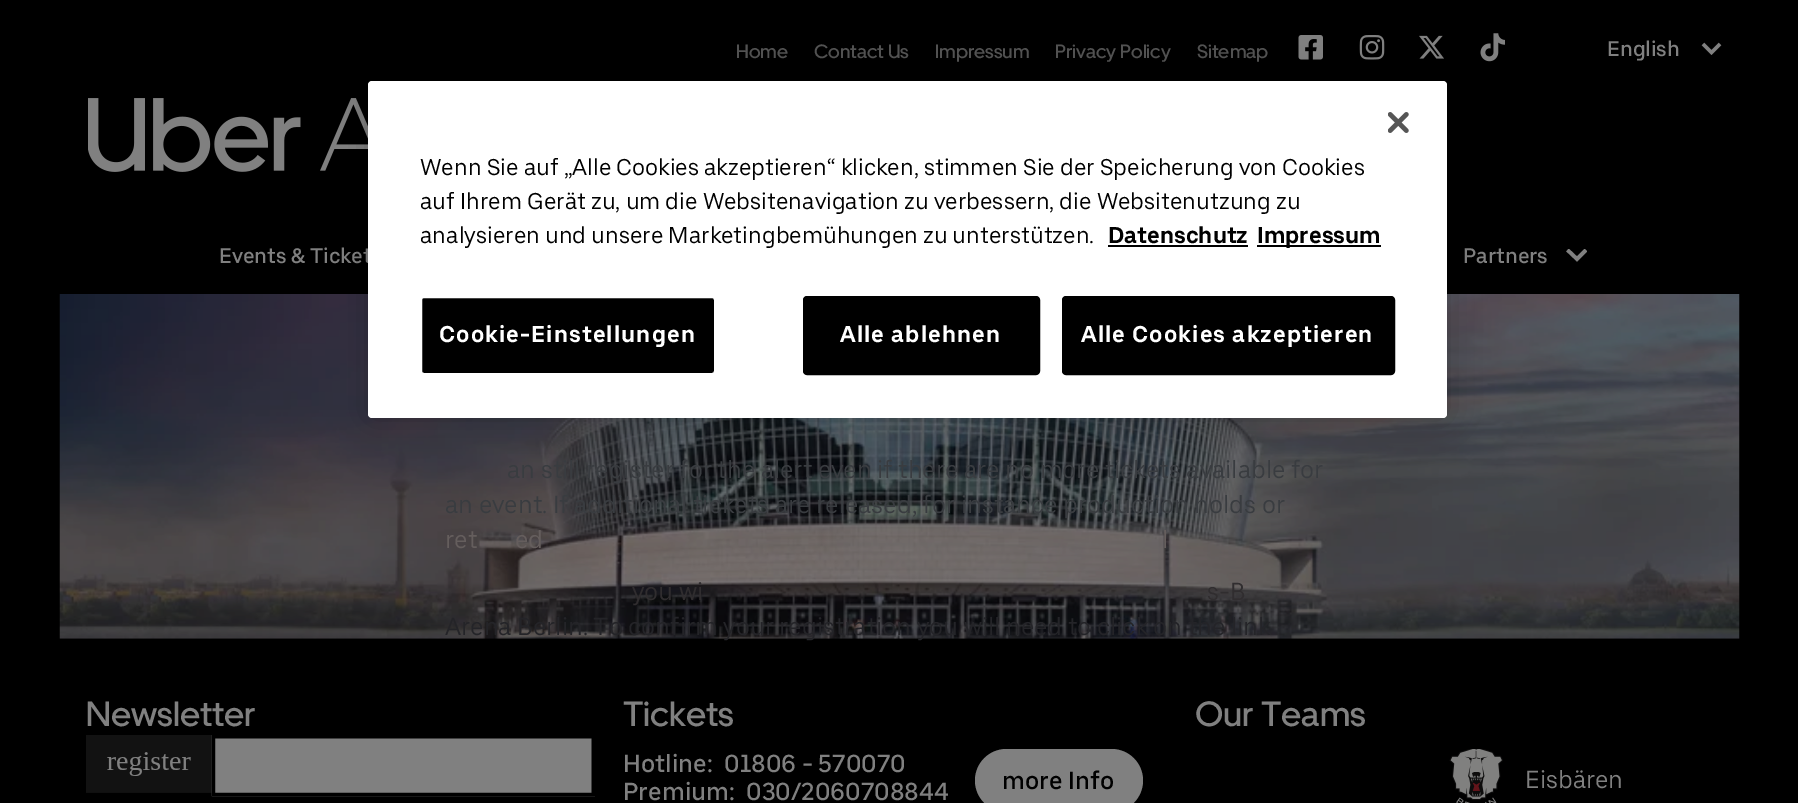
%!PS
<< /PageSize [1798 803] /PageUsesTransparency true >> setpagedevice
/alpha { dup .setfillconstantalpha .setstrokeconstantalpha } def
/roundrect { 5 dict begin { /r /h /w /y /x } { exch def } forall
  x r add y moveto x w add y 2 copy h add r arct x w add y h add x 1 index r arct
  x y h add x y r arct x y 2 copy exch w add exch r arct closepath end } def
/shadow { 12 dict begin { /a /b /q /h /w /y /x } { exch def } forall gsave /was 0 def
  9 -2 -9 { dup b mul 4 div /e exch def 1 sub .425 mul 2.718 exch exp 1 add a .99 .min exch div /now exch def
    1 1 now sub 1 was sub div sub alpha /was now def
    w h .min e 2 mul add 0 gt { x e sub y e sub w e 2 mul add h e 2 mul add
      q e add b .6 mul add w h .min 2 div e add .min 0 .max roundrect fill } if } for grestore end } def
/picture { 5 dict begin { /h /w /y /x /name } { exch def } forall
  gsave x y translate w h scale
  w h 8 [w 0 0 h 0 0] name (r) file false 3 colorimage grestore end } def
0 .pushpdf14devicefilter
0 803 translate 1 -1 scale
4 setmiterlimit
0 setgray
0 0 1798 803 rectfill
/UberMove-Medium [19.25 0 0 -19.25 0 0] selectfont
0.325 setgray
736 58 moveto (Home) show
814 58 moveto (Contact Us) show
935 58 moveto (Impressum) show
1055 58 moveto (Privacy Policy) show
1197 58 moveto (Sitemap) show
(img1.rgb) 1298 35 25 25 picture
(img2.rgb) 1359 35 26 25 picture
(img3.rgb) 1419 35 25 24 picture
(img4.rgb) 1480 33 25 29 picture
/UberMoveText-Medium [21 0 0 -21 0 0] selectfont
0.502 setgray
1607 56 moveto (English) show
3.5 setlinewidth
newpath 1703 44 moveto 1711.5 52.5 lineto 1720 44 lineto stroke
(img5.rgb) 88 98 280 74 picture
219 263 moveto (Events & Ticket) show
1463 263 moveto (Partners) show
gsave
1566 249 21 14 rectclip
3.7 setlinewidth
newpath 1567.5 250 moveto 1577 259 lineto 1586 250 lineto stroke
grestore
(img6.rgb) 59 294 1681 345 picture
/UberMoveText-Regular [24.5 0 0 -24.5 0 0] selectfont
0.224 0.235 0.251 setrgbcolor
507 478 moveto (an still register for the alert even if there are no more tickets available for) show
445 513 moveto (an event. If additional tickets are released, for instance production holds or) show
0.396 0.369 0.365 setrgbcolor
445 548 moveto (ret) show
515 548 moveto (ed) show
1162 548 moveto (l) show
0.188 0.176 0.184 setrgbcolor
632 600 moveto (you wi) show
1207 600 moveto (s-B) show
0.141 0.141 0.157 setrgbcolor
445 635 moveto (Arena Berlin. To confirm your registration you will need to click on the link) show
/UberMove-Medium [35 0 0 -35 0 0] selectfont
0.502 setgray
86 726 moveto (Newsletter) show
(img7.rgb) 86 735 509 62 picture
623 726 moveto (Tickets) show
/UberMoveText-Medium [24.5 0 0 -24.5 0 0] selectfont
623 772 moveto (Hotline:) show
724 772 moveto (01806 - 570070) show
623 800 moveto (Premium:) show
746 800 moveto (030/2060708844) show
975 749 168 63 31.5 roundrect fill
0 setgray
1002 789 moveto (more Info) show
/UberMove-Medium [35 0 0 -35 0 0] selectfont
0.502 setgray
1195 726 moveto (Our Teams) show
(img8.rgb) 1449 749 54 54 picture
/UberMoveText-Regular [24.5 0 0 -24.5 0 0] selectfont
1525 788 moveto (Eisbären) show
0 setgray
368 81 1079 337 4 16 0.2 shadow
1 setgray
368 81 1079 337 4 roundrect fill
(img9.rgb) 1388 112 21 21 picture
/UberMoveText-Regular [22.75 0 0 -22.75 0 0] selectfont
0 setgray
420 175 moveto (Wenn Sie auf „Alle Cookies akzeptieren“ klicken, stimmen Sie der Speicherung von Cookies) show
420 209 moveto (auf Ihrem Gerät zu, um die Websitenavigation zu verbessern, die Websitenutzung zu) show
420 243 moveto (analysieren und unsere Marketingbemühungen zu unterstützen.) show
/UberMoveText-Bold [22.75 0 0 -22.75 0 0] selectfont
1108 243 moveto (Datenschutz) show
1108 245 140 2 rectfill
1257 245 124 2 rectfill
1257 243 moveto (Impressum) show
421 297 294 77 3 roundrect gsave fill grestore
1 setgray
2 setlinewidth
stroke
439 342 moveto 1.1 0 (Cookie-Einstellungen) ashow
0 setgray
804 297 235 77 3 roundrect gsave fill grestore
stroke
1 setgray
840 342 moveto 1.1 0 (Alle ablehnen) ashow
0 setgray
1063 297 331 77 3 roundrect gsave fill grestore
stroke
1 setgray
1081 342 moveto 1.1 0 (Alle Cookies akzeptieren) ashow
.poppdf14devicefilter showpage
